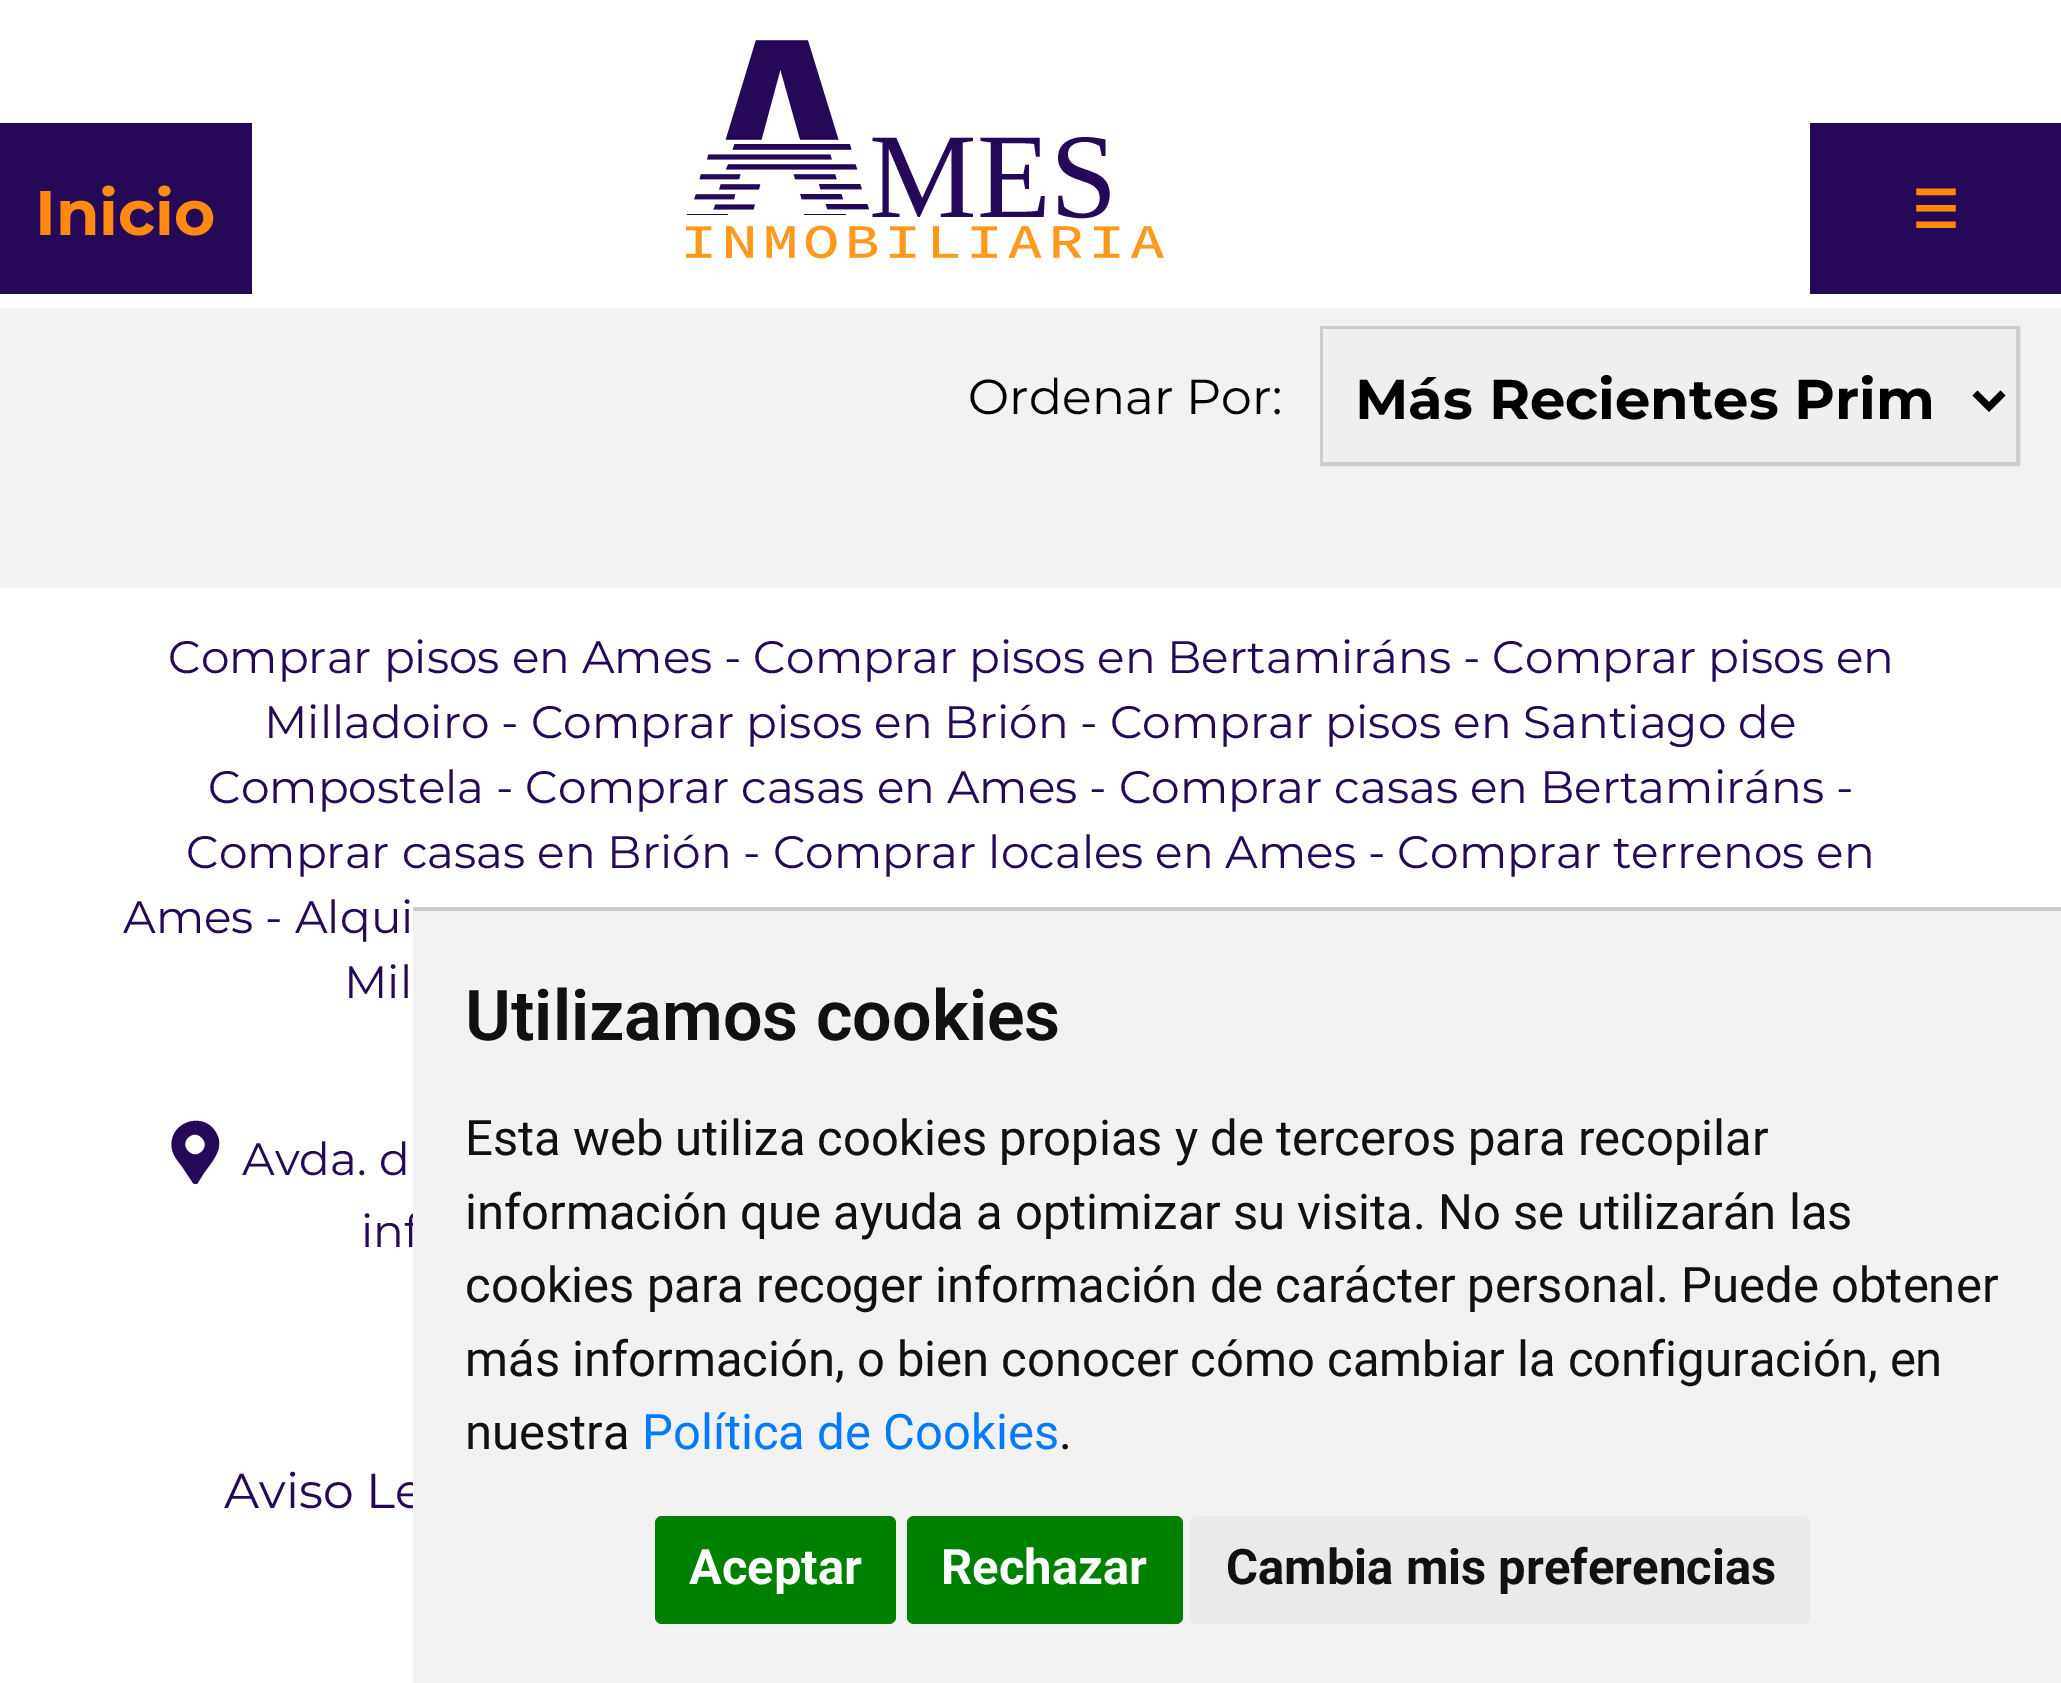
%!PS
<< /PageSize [2061 1683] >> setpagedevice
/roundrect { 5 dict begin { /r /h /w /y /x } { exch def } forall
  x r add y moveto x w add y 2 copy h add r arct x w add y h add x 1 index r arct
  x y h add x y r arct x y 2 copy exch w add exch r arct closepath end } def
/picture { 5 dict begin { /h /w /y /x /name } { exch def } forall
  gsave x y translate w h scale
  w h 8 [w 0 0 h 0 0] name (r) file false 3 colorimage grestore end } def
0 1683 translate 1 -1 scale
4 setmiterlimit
1 setgray
0 0 2061 1683 rectfill
(img1.rgb) 686 40 478 219 picture
/LiberationSerif-Regular [121 0 0 -121 0 0] selectfont
0.145 0.031 0.345 setrgbcolor
869 217 moveto (MES) show
0 123 252 171 rectfill
/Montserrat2-Thin [63 0 0 -63 0 0] selectfont
1 0.541 0.059 setrgbcolor
35 235 moveto (Inicio) show
0.145 0.031 0.345 setrgbcolor
1810 123 251 171 rectfill
/DejaVuSans-Bold [52 0 0 -52 0 0] selectfont
1 0.541 0.059 setrgbcolor
1912 228 moveto (☰) show
0.949 setgray
0 308 2061 280 rectfill
/Montserrat-Thin [49 0 0 -49 0 0] selectfont
0 setgray
968 414 moveto (Ordenar Por:) show
0.8 setgray
4 setlinewidth
1322 328 696 136 rectstroke
0.937 setgray
1323 329 693 133 rectfill
0 setgray
7 setlinewidth
newpath 1975 393 moveto 1989 407 lineto 2003 393 lineto stroke
/Montserrat2-Thin [56 0 0 -56 0 0] selectfont
1355 419 moveto (Más Recientes Prim) show
/Montserrat-Thin [45.5 0 0 -45.5 0 0] selectfont
0.145 0.031 0.345 setrgbcolor
168 673 moveto (Comprar pisos en Ames - Comprar pisos en Bertamiráns - Comprar pisos en) show
264 738 moveto (Milladoiro - Comprar pisos en Brión - Comprar pisos en Santiago de) show
208 803 moveto (Compostela - Comprar casas en Ames - Comprar casas en Bertamiráns -) show
186 868 moveto (Comprar casas en Brión - Comprar locales en Ames - Comprar terrenos en) show
123 933 moveto (Ames - Alqui) show
344 998 moveto (Mil) show
newpath 193 1183 moveto 183 1168 lineto 179 1162 173 1156 172 1149 curveto 167 1124 201 1110 215 1131 curveto 226 1147 213 1160 204 1173 curveto 197 1184 lineto 195 1184 194 1184 193 1183 curveto closepath 188 1151 moveto 197 1161 211 1147 202 1138 curveto 193 1128 179 1142 188 1151 curveto closepath fill
242 1175 moveto (Avda. d) show
361 1247 moveto (inf) show
/Montserrat-Thin [49 0 0 -49 0 0] selectfont
224 1508 moveto (Aviso Le) show
0.949 setgray
413 911 1648 772 rectfill
0.8 setgray
413 907 1648 4 rectfill
/Roboto-SemiBold [70 0 0 -70 0 0] selectfont
0.067 setgray
465 1040 moveto (Utilizamos cookies) show
/Roboto-Regular [49 0 0 -49 0 0] selectfont
465 1155 moveto (Esta web utiliza cookies propias y de terceros para recopilar) show
465 1229 moveto (información que ayuda a optimizar su visita. No se utilizarán las) show
465 1302 moveto (cookies para recoger información de carácter personal. Puede obtener) show
465 1376 moveto (más información, o bien conocer cómo cambiar la configuración, en) show
465 1449 moveto (nuestra) show
0 0.482 1 setrgbcolor
642 1449 moveto (Política de Cookies) show
0.067 setgray
1059 1449 moveto (.) show
0 0.502 0 setrgbcolor
655 1516 241 108 7 roundrect fill
/Roboto-Bold [49 0 0 -49 0 0] selectfont
1 setgray
689 1584 moveto (Aceptar) show
0 0.502 0 setrgbcolor
907 1516 276 108 7 roundrect fill
1 setgray
941 1584 moveto (Rechazar) show
0.918 setgray
1190 1516 620 108 7 roundrect fill
0.067 setgray
1226 1584 moveto (Cambia mis preferencias) show
showpage
